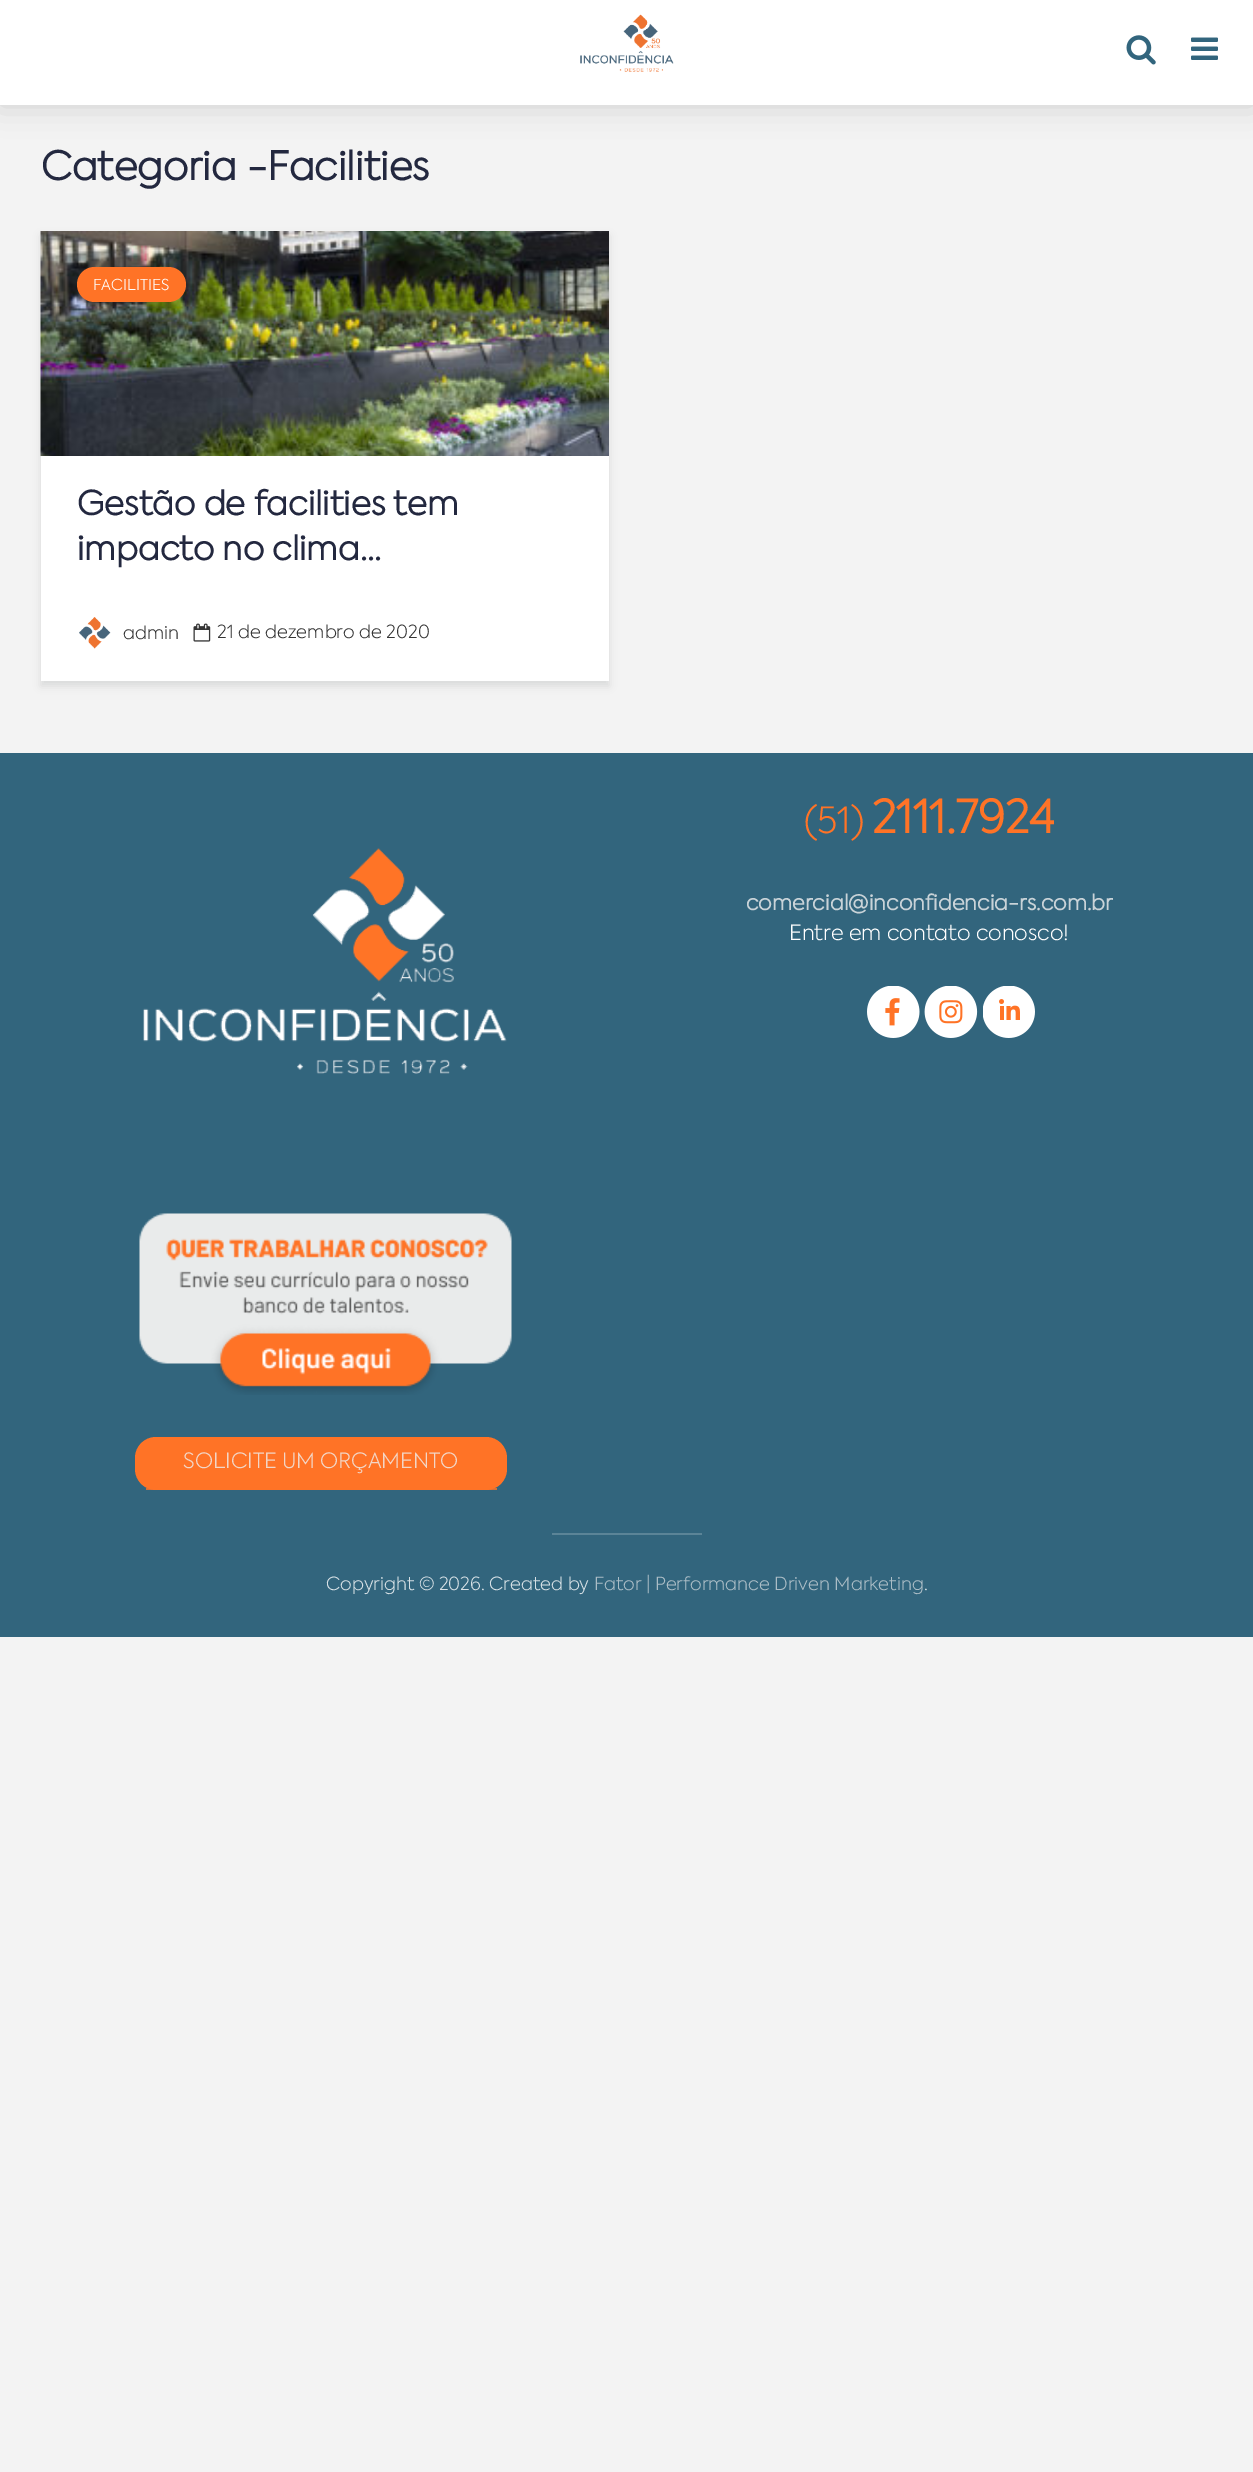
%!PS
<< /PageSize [1253 2472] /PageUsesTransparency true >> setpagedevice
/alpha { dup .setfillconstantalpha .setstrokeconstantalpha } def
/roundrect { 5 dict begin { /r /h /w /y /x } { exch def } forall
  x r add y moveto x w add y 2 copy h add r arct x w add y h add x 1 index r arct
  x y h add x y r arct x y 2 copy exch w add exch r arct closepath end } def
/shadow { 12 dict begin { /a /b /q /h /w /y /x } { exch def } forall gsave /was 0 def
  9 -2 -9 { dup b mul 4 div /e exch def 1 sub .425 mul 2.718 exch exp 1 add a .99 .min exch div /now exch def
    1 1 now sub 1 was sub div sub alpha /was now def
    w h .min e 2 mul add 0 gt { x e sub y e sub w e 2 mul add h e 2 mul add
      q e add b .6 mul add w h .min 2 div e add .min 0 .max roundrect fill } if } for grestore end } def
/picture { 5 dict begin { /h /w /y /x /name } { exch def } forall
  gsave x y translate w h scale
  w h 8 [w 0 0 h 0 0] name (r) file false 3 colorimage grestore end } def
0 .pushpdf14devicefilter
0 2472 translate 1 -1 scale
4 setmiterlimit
0.953 setgray
0 0 1253 2472 rectfill
0 setgray
0 0 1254 105 0 15 0.15 shadow
1 setgray
0 0 1253 105 rectfill
(img1.rgb) 580 14 94 58 picture
(img2.rgb) 1126 35 30 30 picture
(img3.rgb) 1191 37 27 23 picture
/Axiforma-Bold [39 0 0 -39 0 0] selectfont
0.137 0.157 0.247 setrgbcolor
41 180 moveto (Categoria -Facilities) show
0 0.004 0.004 setrgbcolor
41 236 568 450 0 4 0.1 shadow
1 setgray
41 456 568 225 rectfill
(img4.rgb) 40 231 569 225 picture
1 0.451 0.149 setrgbcolor
77 267 109 35 17.5 roundrect fill
/Axiforma-Light [15 0 0 -15 0 0] selectfont
1 setgray
93 290 moveto (FACILITIES) show
/Axiforma-Bold [33 0 0 -33 0 0] selectfont
0.137 0.157 0.247 setrgbcolor
77 515 moveto (Gestão de facilities tem) show
77 560 moveto (impacto no clima...) show
(img5.rgb) 79 617 32 32 picture
/Axiforma-Light [18 0 0 -18 0 0] selectfont
0.208 setgray
123 639 moveto (admin) show
(img6.rgb) 193 623 18 19 picture
217 638 moveto (21 de dezembro de 2020) show
0.196 0.396 0.49 setrgbcolor
0 753 1253 884 rectfill
(img7.rgb) 143 848 364 226 picture
/Axiforma-Light [36 0 0 -36 0 0] selectfont
1 0.451 0.149 setrgbcolor
804 833 moveto (\(51\)) show
/Axiforma-Bold [45 0 0 -45 0 0] selectfont
872 833 moveto (2111.7924) show
/Axiforma-Bold [21 0 0 -21 0 0] selectfont
0.788 0.827 0.847 setrgbcolor
746 910 moveto (comercial@inconfidencia-rs.com.br) show
/Axiforma-Light [21 0 0 -21 0 0] selectfont
1 setgray
789 940 moveto (Entre em contato conosco!) show
(img8.rgb) 867 986 53 52 picture
(img9.rgb) 924 986 54 52 picture
(img10.rgb) 983 986 52 52 picture
(img11.rgb) 139 1213 373 182 picture
1 0.451 0.149 setrgbcolor
135 1437 372 53 21 roundrect fill
0.8 alpha
146 1488 351 2 rectfill
1 alpha
0.949 0.839 0.78 setrgbcolor
183 1468 moveto (SOLICITE UM ORÇAMENTO) show
0.357 0.518 0.592 setrgbcolor
552 1533 150 2 rectfill
/Axiforma-Light [18 0 0 -18 0 0] selectfont
0.839 0.878 0.898 setrgbcolor
326 1590 moveto (Copyright © 2026. Created by) show
0.671 0.741 0.776 setrgbcolor
594 1590 moveto (Fator | Performance Driven Marketing) show
0.839 0.878 0.898 setrgbcolor
924 1590 moveto (.) show
.poppdf14devicefilter showpage
